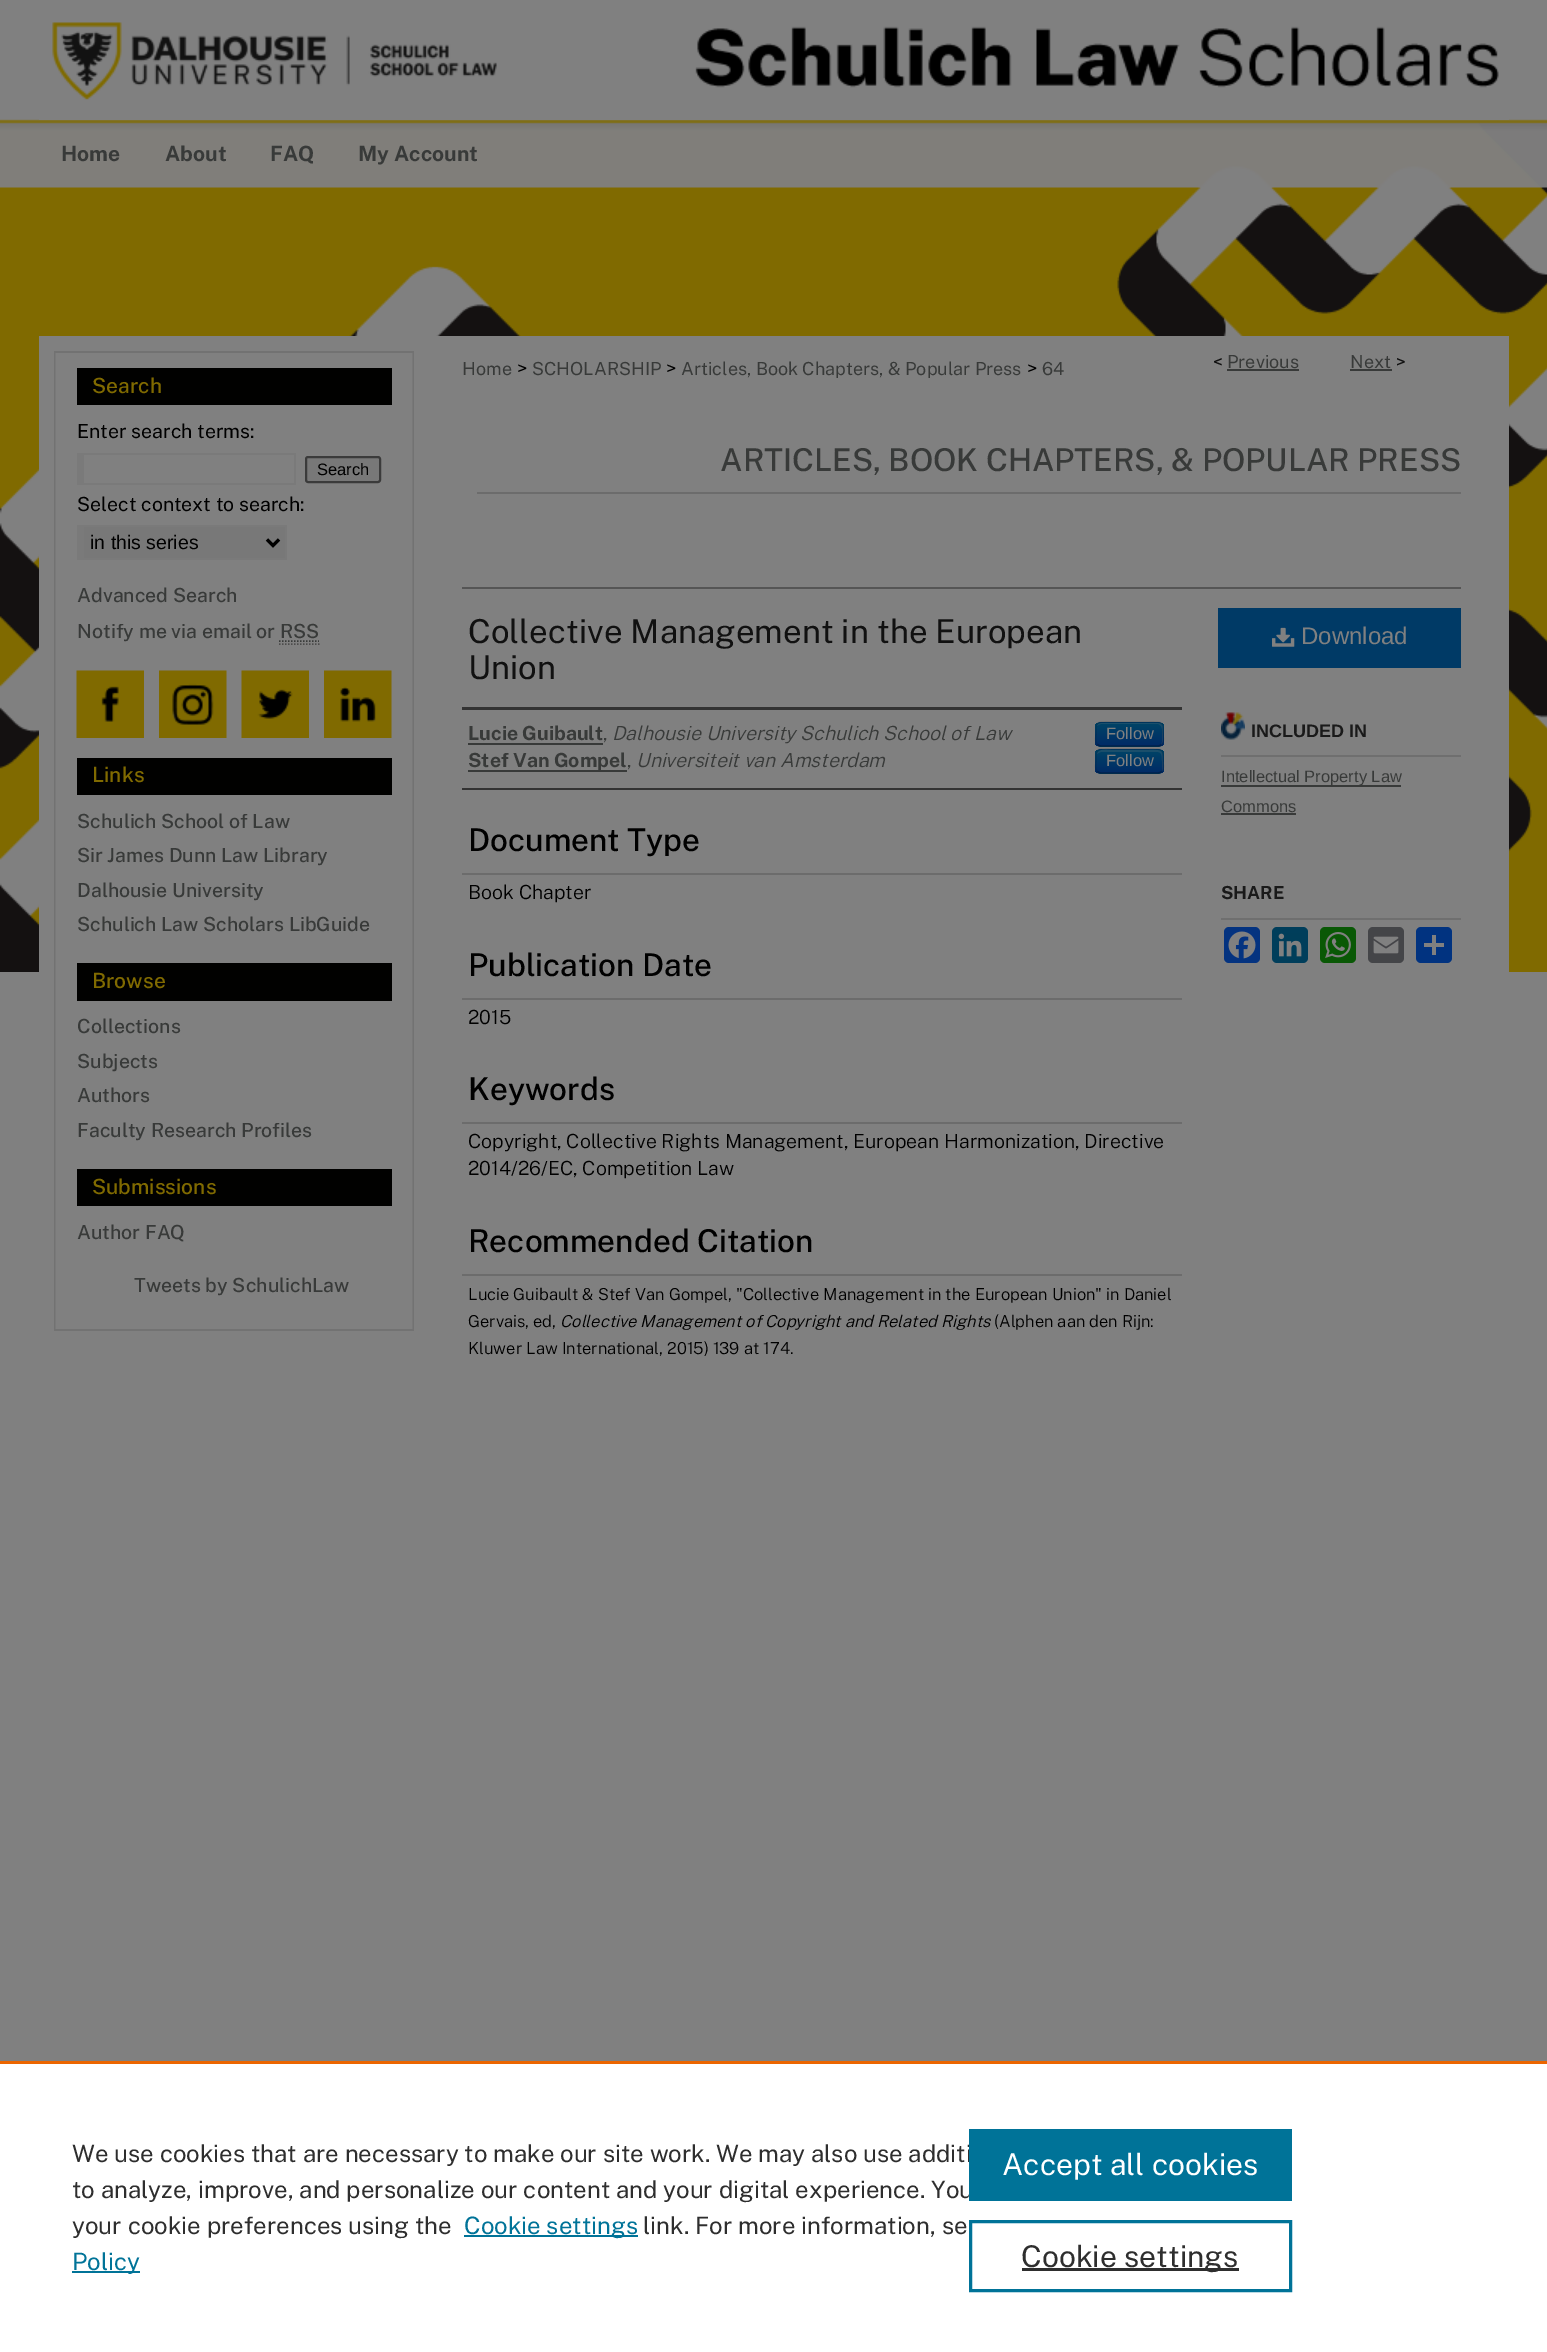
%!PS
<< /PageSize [1547 2352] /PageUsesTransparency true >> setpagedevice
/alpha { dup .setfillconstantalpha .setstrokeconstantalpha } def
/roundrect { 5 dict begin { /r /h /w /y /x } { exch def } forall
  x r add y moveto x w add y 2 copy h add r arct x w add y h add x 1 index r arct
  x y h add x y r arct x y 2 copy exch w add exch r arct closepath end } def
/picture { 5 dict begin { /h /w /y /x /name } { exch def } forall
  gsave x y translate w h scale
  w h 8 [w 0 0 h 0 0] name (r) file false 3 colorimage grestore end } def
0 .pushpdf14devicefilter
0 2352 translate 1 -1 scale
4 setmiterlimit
0.502 setgray
0 0 1547 2352 rectfill
(img1.rgb) 0 117 1547 855 picture
39 119 1470 1 rectfill
(img2.rgb) 52 22 1447 78 picture
/PublicSans-Bold [21 0 0 -21 0 0] selectfont
0.22 0.227 0.224 setrgbcolor
61 161 moveto (Home) show
165 161 moveto (About) show
270 161 moveto (FAQ) show
358 161 moveto (My Account) show
0.502 setgray
39 336 1470 636 rectfill
(img3.rgb) 54 353 360 976 picture
0.447 setgray
54 351 360 2 rectfill
54 1329 360 2 rectfill
0.004 0.004 0 setrgbcolor
77 368 315 37 rectfill
/PublicSans-Medium [21 0 0 -21 0 0] selectfont
0.502 0.416 0 setrgbcolor
92 393 moveto (Search) show
/PublicSans-Regular [19.5 0 0 -19.5 0 0] selectfont
0 setgray
77 438 moveto (Enter search terms:) show
0.478 setgray
77 453 219 2 rectfill
294 453 2 32 rectfill
77 483 219 2 rectfill
77 453 7 32 rectfill
0.471 setgray
306 457 74 25 2 roundrect gsave fill grestore
0.231 setgray
2 setlinewidth
stroke
/LiberationSans-Regular [16.5 0 0 -16.5 0 0] selectfont
0 setgray
317 475 moveto (Search) show
/PublicSans-Regular [19.5 0 0 -19.5 0 0] selectfont
77 511 moveto (Select context to search:) show
0.471 setgray
84 527 201 31 rectfill
0.478 setgray
77 525 210 2 rectfill
285 525 2 35 rectfill
77 558 210 2 rectfill
77 525 7 35 rectfill
0 setgray
3 setlinewidth
newpath 267 539.5 moveto 273 545.5 lineto 279 539.5 lineto stroke
/LiberationSans-Regular [19.5 0 0 -19.5 0 0] selectfont
90 549 moveto (in this series) show
/PublicSans-Medium [19.5 0 0 -19.5 0 0] selectfont
0.22 0.227 0.224 setrgbcolor
77 602 moveto (Advanced Search) show
77 638 moveto (Notify me via email or RSS) show
1.5 setlinewidth
[1.5 1.5] 0 setdash
newpath 279 641 moveto 319 641 lineto stroke
0.302 setgray
newpath 279 644 moveto 319.5 644 lineto stroke
(img4.rgb) 76 670 68 68 picture
(img5.rgb) 159 670 68 68 picture
(img6.rgb) 241 670 68 68 picture
(img7.rgb) 324 670 68 68 picture
0.004 0.004 0 setrgbcolor
77 758 315 37 rectfill
/PublicSans-Medium [21 0 0 -21 0 0] selectfont
0.502 0.416 0 setrgbcolor
92 782 moveto (Links) show
/PublicSans-Medium [19.5 0 0 -19.5 0 0] selectfont
0.22 0.227 0.224 setrgbcolor
77 828 moveto (Schulich School of Law) show
77 862 moveto (Sir James Dunn Law Library) show
77 897 moveto (Dalhousie University) show
77 931 moveto (Schulich Law Scholars LibGuide) show
0.004 0.004 0 setrgbcolor
77 963 315 38 rectfill
/PublicSans-Medium [21 0 0 -21 0 0] selectfont
0.502 0.416 0 setrgbcolor
92 988 moveto (Browse) show
/PublicSans-Medium [19.5 0 0 -19.5 0 0] selectfont
0.22 0.227 0.224 setrgbcolor
77 1033 moveto (Collections) show
77 1068 moveto (Subjects) show
77 1102 moveto (Authors) show
77 1137 moveto (Faculty Research Profiles) show
0.004 0.004 0 setrgbcolor
77 1169 315 37 rectfill
/PublicSans-Medium [21 0 0 -21 0 0] selectfont
0.502 0.416 0 setrgbcolor
92 1194 moveto (Submissions) show
/PublicSans-Medium [19.5 0 0 -19.5 0 0] selectfont
0.22 0.227 0.224 setrgbcolor
77 1239 moveto (Author FAQ) show
134 1292 moveto (Tweets by SchulichLaw) show
/PublicSans-Regular [18 0 0 -18 0 0] selectfont
462 375 moveto (Home) show
/PublicSans-Light [19.5 0 0 -19.5 0 0] selectfont
0 setgray
517 375 moveto (>) show
/PublicSans-Regular [18 0 0 -18 0 0] selectfont
0.22 0.227 0.224 setrgbcolor
532 375 moveto (SCHOLARSHIP) show
/PublicSans-Light [19.5 0 0 -19.5 0 0] selectfont
0 setgray
666 375 moveto (>) show
/PublicSans-Regular [18 0 0 -18 0 0] selectfont
0.22 0.227 0.224 setrgbcolor
681 375 moveto (Articles, Book Chapters, & Popular Press) show
/PublicSans-Light [19.5 0 0 -19.5 0 0] selectfont
0 setgray
1027 375 moveto (>) show
/PublicSans-Regular [18 0 0 -18 0 0] selectfont
0.22 0.227 0.224 setrgbcolor
1042 375 moveto (64) show
0.067 setgray
1213 368 moveto (<) show
0.22 0.227 0.224 setrgbcolor
1227 368 moveto (Previous) show
1227 369 72 2 rectfill
1350 368 moveto (Next) show
1350 369 42 2 rectfill
0.067 setgray
1396 368 moveto (>) show
0.424 setgray
477 492 984 2 rectfill
/PublicSans-Medium [31.5 0 0 -31.5 0 0] selectfont
0.22 0.227 0.224 setrgbcolor
720 471 moveto (ARTICLES, BOOK CHAPTERS, & POPULAR PRESS) show
0.333 setgray
462 587 999 2 rectfill
/PublicSans-Regular [33 0 0 -33 0 0] selectfont
0.067 setgray
468 643 moveto (Collective Management in the European) show
468 679 moveto (Union) show
0.2 setgray
462 707 720 3 rectfill
462 788 720 2 rectfill
/PublicSans-Bold [19.5 0 0 -19.5 0 0] selectfont
0.22 0.227 0.224 setrgbcolor
468 740 moveto (Lucie Guibault) show
468 743 135 2 rectfill
/PublicSans-Light [19.5 0 0 -19.5 0 0] selectfont
603 740 moveto (,) show
/PublicSans-LightItalic [19.5 0 0 -19.5 0 0] selectfont
612 740 moveto (Dalhousie University Schulich School of Law) show
0 0.227 0.4 setrgbcolor
1095 722 69 25 6 roundrect fill
gsave
1095 722 69 25 6 roundrect clip newpath
gsave newpath 1095 723 moveto 1164 723 lineto 1164 746 lineto 1095 746 lineto closepath clip newpath
<< /ShadingType 2 /ColorSpace /DeviceRGB /Coords [1130 723 1130 746] /Extend [true true] /Function << /FunctionType 2 /Domain [0 1] /C0 [0 0.267 0.4] /C1 [0 0.169 0.4] /N 1 >> >> shfill grestore
grestore
0.2 alpha
0.502 setgray
newpath 1101 724 moveto 1158 724 lineto 1160 724 1162 727 1162 729 curveto 1162 742 lineto 1161 745 lineto 1162 744 1163 742 1163 741 curveto 1163 728 lineto 1163 725 1161 723 1158 723 curveto 1102 723 lineto 1100 723 1098 724 1097 726 curveto 1098 725 1100 724 1101 724 curveto closepath fill
0.25 alpha
0 setgray
[] 0 setdash
newpath 1161.5 744.5 moveto 1160.5 745.5 1159.5 746 1158 746 curveto 1101 746 lineto 1099.5 746 1098.5 745.5 1097.5 744.5 curveto stroke
0.1 alpha
newpath 1097.5 744.5 moveto 1094.5 742 1096 737.5 1096 734 curveto 1096 721 1096.5 722 1110.5 722 curveto 1148.5 722 lineto 1162.5 722 1163 721 1163 734 curveto 1163 737.5 1164.5 742 1161.5 744.5 curveto stroke
/LiberationSans-Regular [16.5 0 0 -16.5 0 0] selectfont
1 alpha
0.502 setgray
1106 739 moveto (Follow) show
0.22 0.227 0.224 setrgbcolor
468 770 159 2 rectfill
/PublicSans-Bold [19.5 0 0 -19.5 0 0] selectfont
468 767 moveto (Stef Van Gompel) show
/PublicSans-Light [19.5 0 0 -19.5 0 0] selectfont
627 767 moveto (,) show
/PublicSans-LightItalic [19.5 0 0 -19.5 0 0] selectfont
636 767 moveto (Universiteit van Amsterdam) show
0 0.227 0.4 setrgbcolor
1095 749 69 25 6 roundrect fill
gsave
1095 749 69 25 6 roundrect clip newpath
gsave newpath 1095 750 moveto 1164 750 lineto 1164 773 lineto 1095 773 lineto closepath clip newpath
<< /ShadingType 2 /ColorSpace /DeviceRGB /Coords [1130 750 1130 773] /Extend [true true] /Function << /FunctionType 2 /Domain [0 1] /C0 [0 0.267 0.4] /C1 [0 0.169 0.4] /N 1 >> >> shfill grestore
grestore
0.2 alpha
0.502 setgray
newpath 1101 752 moveto 1148 752 lineto 1160 752 1162 750 1162 761 curveto 1162 771 lineto 1164 769 1163 764 1163 762 curveto 1163 749 1162 750 1149 750 curveto 1111 750 lineto 1108 750 1099 748 1097 754 curveto 1098 753 1100 752 1101 752 curveto closepath fill
0.25 alpha
0 setgray
newpath 1161.5 771.5 moveto 1160.5 772.5 1159.5 773 1158 773 curveto 1101 773 lineto 1099.5 773 1098.5 772.5 1097.5 771.5 curveto stroke
0.1 alpha
newpath 1097.5 771.5 moveto 1094.5 769 1096 764.5 1096 761 curveto 1096 748 1096.5 749 1110.5 749 curveto 1148.5 749 lineto 1162.5 749 1163 748 1163 761 curveto 1163 764.5 1164.5 769 1161.5 771.5 curveto stroke
/LiberationSans-Regular [16.5 0 0 -16.5 0 0] selectfont
1 alpha
0.502 setgray
1106 766 moveto (Follow) show
0.424 setgray
462 873 720 2 rectfill
/PublicSans-Medium [31.5 0 0 -31.5 0 0] selectfont
0 setgray
468 851 moveto (Document Type) show
/PublicSans-Light [19.5 0 0 -19.5 0 0] selectfont
468 899 moveto (Book Chapter) show
0.424 setgray
462 998 720 2 rectfill
/PublicSans-Medium [31.5 0 0 -31.5 0 0] selectfont
0 setgray
468 976 moveto (Publication Date) show
/PublicSans-Light [19.5 0 0 -19.5 0 0] selectfont
468 1024 moveto (2015) show
0.424 setgray
462 1122 720 2 rectfill
/PublicSans-Medium [31.5 0 0 -31.5 0 0] selectfont
0 setgray
468 1100 moveto (Keywords) show
/PublicSans-Light [19.5 0 0 -19.5 0 0] selectfont
468 1148 moveto (Copyright, Collective Rights Management, European Harmonization, Directive) show
468 1175 moveto (2014/26/EC, Competition Law) show
0.424 setgray
462 1274 720 2 rectfill
/PublicSans-Medium [31.5 0 0 -31.5 0 0] selectfont
0 setgray
468 1252 moveto (Recommended Citation) show
/PublicSans-Light [16.5 0 0 -16.5 0 0] selectfont
468 1300 moveto (Lucie Guibault & Stef Van Gompel, "Collective Management in the European Union" in Daniel) show
468 1327 moveto (Gervais, ed,) show
/PublicSans-LightItalic [16.5 0 0 -16.5 0 0] selectfont
560 1327 moveto (Collective Management of Copyright and Related Rights) show
/PublicSans-Light [16.5 0 0 -16.5 0 0] selectfont
994 1327 moveto (\(Alphen aan den Rijn:) show
468 1354 moveto (Kluwer Law International, 2015\) 139 at 174.) show
0 0.227 0.4 setrgbcolor
1218 608 243 60 rectfill
(img8.rgb) 1272 627 23 20 picture
/LiberationSans-Regular [24 0 0 -24 0 0] selectfont
0.502 setgray
1301 644 moveto (Download) show
(img9.rgb) 1221 712 24 28 picture
0.435 setgray
1221 755 240 2 rectfill
/LiberationSans-Bold [18 0 0 -18 0 0] selectfont
0.102 setgray
1251 737 moveto (INCLUDED IN) show
0.22 0.227 0.224 setrgbcolor
1221 785 180 2 rectfill
/LiberationSans-Regular [16.5 0 0 -16.5 0 0] selectfont
1221 782 moveto (Intellectual Property Law) show
1221 812 moveto (Commons) show
1221 813 75 2 rectfill
0.435 setgray
1221 918 240 2 rectfill
/PublicSans-Bold [18 0 0 -18 0 0] selectfont
0.102 setgray
1221 899 moveto (SHARE) show
0.016 0.2 0.502 setrgbcolor
1224 927 36 36 5 roundrect fill
(img10.rgb) 1228 931 28 28 picture
0 0.243 0.357 setrgbcolor
1272 927 36 36 5 roundrect fill
(img11.rgb) 1278 933 24 24 picture
0.035 0.345 0.02 setrgbcolor
1320 927 36 36 5 roundrect fill
(img12.rgb) 1325 932 26 26 picture
0.267 0.271 0.282 setrgbcolor
1368 927 36 36 5 roundrect fill
(img13.rgb) 1373 936 26 18 picture
0.004 0.2 0.502 setrgbcolor
1416 927 36 36 5 roundrect fill
0.502 setgray
1432 935 4 20 rectfill
1424 943 20 4 rectfill
1 setgray
0 2064 1547 288 rectfill
0.922 0.396 0 setrgbcolor
0 2061 1547 3 rectfill
/PublicSans-Regular [24 0 0 -24 0 0] selectfont
0.18 setgray
72 2162 moveto (We use cookies that are necessary to make our site work. We may also use additi) show
72 2198 moveto (to analyze, improve, and personalize our content and your digital experience. You) show
72 2234 moveto (your cookie preferences using the) show
0 0.451 0.596 setrgbcolor
464 2235 174 2 rectfill
464 2234 moveto (Cookie settings) show
0.18 setgray
643 2234 moveto (link. For more information, se) show
0 0.451 0.596 setrgbcolor
72 2271 68 2 rectfill
72 2270 moveto (Policy) show
969 2129 323 72 rectfill
/PublicSans-Regular [30 0 0 -30 0 0] selectfont
1 setgray
1002 2175 moveto (Accept all cookies) show
0 0.451 0.596 setrgbcolor
3 setlinewidth
970.5 2221.5 320 69 rectstroke
0.18 setgray
1022 2268 217 3 rectfill
1021 2267 moveto (Cookie settings) show
.poppdf14devicefilter showpage
